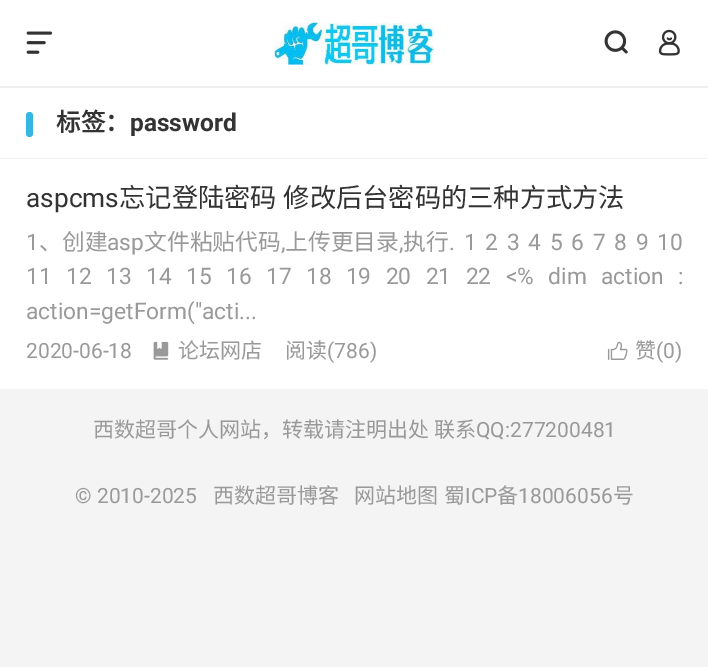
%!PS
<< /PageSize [708 667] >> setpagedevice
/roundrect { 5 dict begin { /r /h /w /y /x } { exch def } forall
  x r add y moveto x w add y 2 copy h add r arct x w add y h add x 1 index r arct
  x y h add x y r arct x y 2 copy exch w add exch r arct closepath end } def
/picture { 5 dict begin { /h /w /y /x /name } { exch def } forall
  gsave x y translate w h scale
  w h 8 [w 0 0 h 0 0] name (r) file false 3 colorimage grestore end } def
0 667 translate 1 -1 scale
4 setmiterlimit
0.957 setgray
0 0 708 667 rectfill
1 setgray
0 0 708 159 rectfill
(img1.rgb) 274 22 160 43 picture
(img2.rgb) 604 30 24 24 picture
(img3.rgb) 658 29 22 27 picture
0.933 setgray
0 86 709 2 1 roundrect fill
(img4.rgb) 26 31 27 23 picture
0.212 0.718 0.886 setrgbcolor
26 112 7 25 3.5 roundrect fill
/NotoSansCJKSC-Bold [24.5 0 0 -24.5 0 0] selectfont
0.2 setgray
56 131 moveto (标签：) show
/Roboto-Bold [24.5 0 0 -24.5 0 0] selectfont
130 131 moveto (password) show
0.953 setgray
0 158 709 2 1 roundrect fill
1 setgray
0 159 708 230 rectfill
/Roboto-Regular [26.25 0 0 -26.25 0 0] selectfont
0.2 setgray
26 207 moveto (aspcms) show
/NotoSansCJKSC-Regular [26.25 0 0 -26.25 0 0] selectfont
119 207 moveto 1 0 32 (忘记登陆密码 修改后台密码的三种方式方法) widthshow
/Roboto-Regular [22.75 0 0 -22.75 0 0] selectfont
0.6 setgray
26 250 moveto (1) show
/NotoSansCJKSC-Regular [22.75 0 0 -22.75 0 0] selectfont
39 250 moveto (、创建) show
/Roboto-Regular [22.75 0 0 -22.75 0 0] selectfont
107 250 moveto (asp) show
/NotoSansCJKSC-Regular [22.75 0 0 -22.75 0 0] selectfont
144 250 moveto (文件粘贴代码) show
/Roboto-Regular [22.75 0 0 -22.75 0 0] selectfont
281 250 moveto (,) show
/NotoSansCJKSC-Regular [22.75 0 0 -22.75 0 0] selectfont
285 250 moveto (上传更目录) show
/Roboto-Regular [22.75 0 0 -22.75 0 0] selectfont
399 250 moveto (,) show
/NotoSansCJKSC-Regular [22.75 0 0 -22.75 0 0] selectfont
403 250 moveto (执行) show
/Roboto-Regular [22.75 0 0 -22.75 0 0] selectfont
449 250 moveto 3.1 0 32 (. 1 2 3 4 5 6 7 8 9 10) widthshow
26 284 moveto 8.75 0 32 (11 12 13 14 15 16 17 18 19 20 21 22 <% dim action :) widthshow
26 319 moveto (action=getForm\("acti...) show
/Roboto-Regular [21 0 0 -21 0 0] selectfont
26 358 moveto (2020-06-18) show
(img5.rgb) 153 341 16 19 picture
/NotoSansCJKSC-Regular [21 0 0 -21 0 0] selectfont
178 358 moveto (论坛网店) show
285 358 moveto (阅读) show
/Roboto-Regular [21 0 0 -21 0 0] selectfont
327 358 moveto (\(786\)) show
(img6.rgb) 607 341 21 19 picture
/NotoSansCJKSC-Regular [21 0 0 -21 0 0] selectfont
635 358 moveto (赞) show
/Roboto-Regular [21 0 0 -21 0 0] selectfont
656 358 moveto (\(0\)) show
/NotoSansCJKSC-Regular [21 0 0 -21 0 0] selectfont
93 437 moveto (西数超哥个人网站，转载请注明出处 联系) show
/Roboto-Regular [21 0 0 -21 0 0] selectfont
476 437 moveto (QQ:277200481) show
75 503 moveto (© 2010-2025) show
/NotoSansCJKSC-Regular [21 0 0 -21 0 0] selectfont
213 503 moveto (西数超哥博客) show
354 503 moveto (网站地图) show
444 503 moveto (蜀) show
/Roboto-Regular [21 0 0 -21 0 0] selectfont
465 503 moveto (ICP) show
/NotoSansCJKSC-Regular [21 0 0 -21 0 0] selectfont
497 503 moveto (备) show
/Roboto-Regular [21 0 0 -21 0 0] selectfont
518 503 moveto (18006056) show
/NotoSansCJKSC-Regular [21 0 0 -21 0 0] selectfont
613 503 moveto (号) show
showpage
